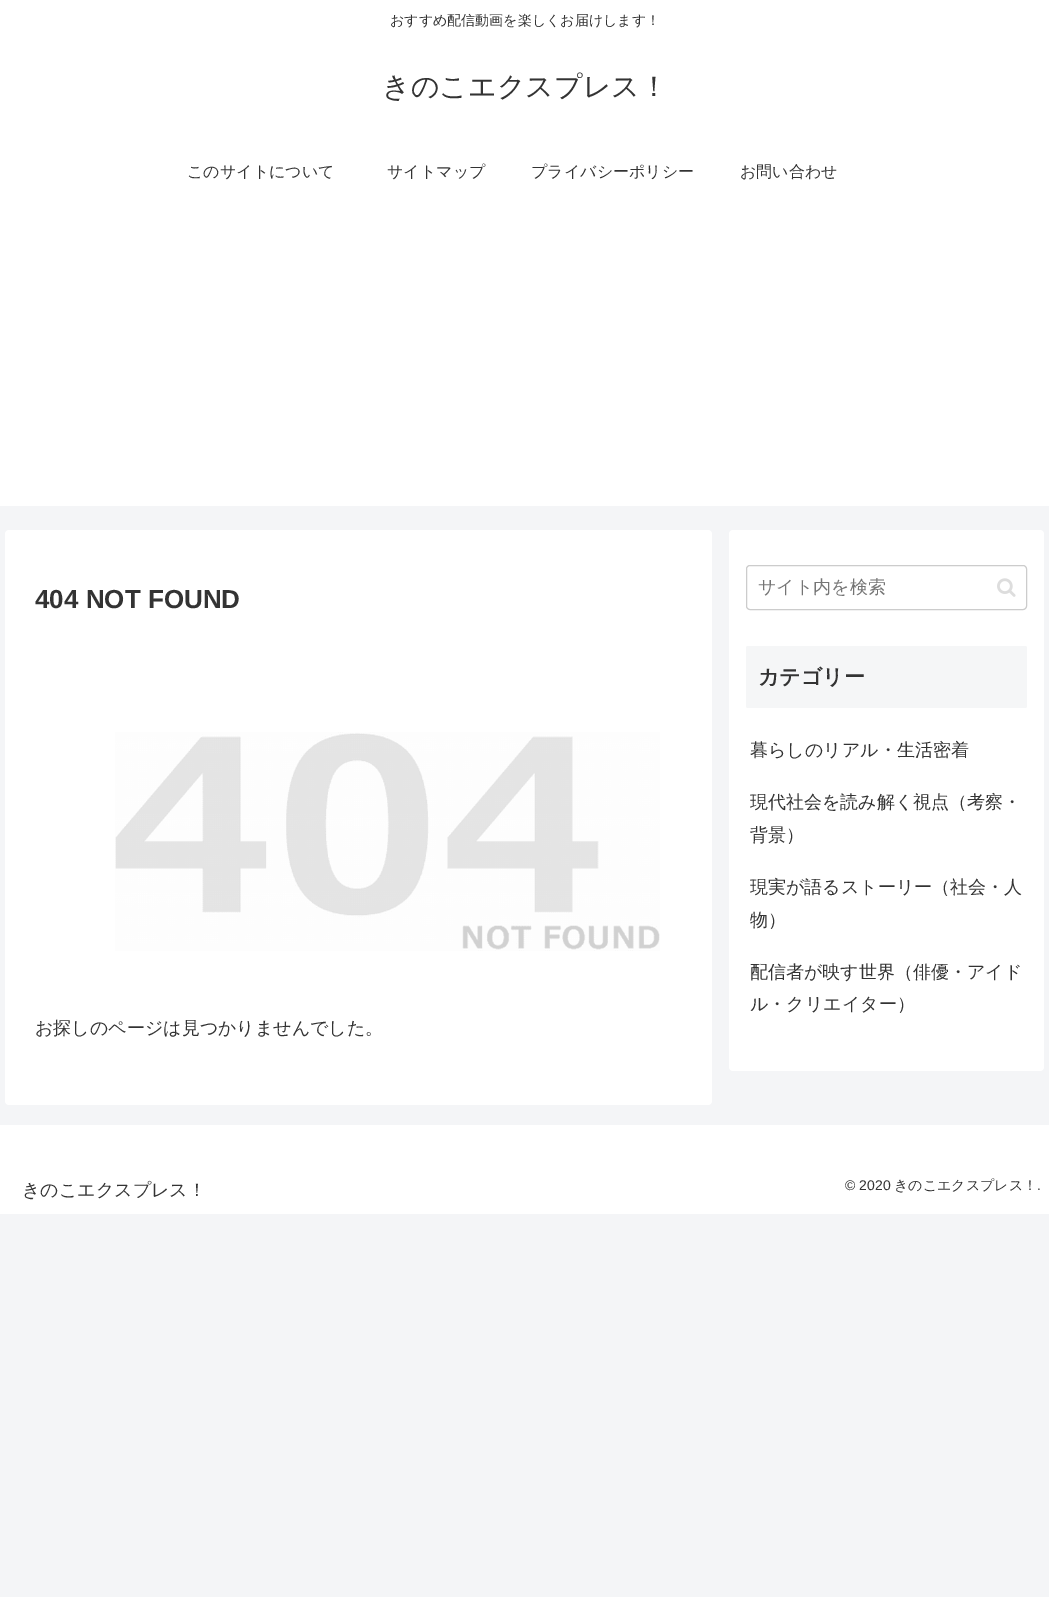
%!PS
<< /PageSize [1049 1597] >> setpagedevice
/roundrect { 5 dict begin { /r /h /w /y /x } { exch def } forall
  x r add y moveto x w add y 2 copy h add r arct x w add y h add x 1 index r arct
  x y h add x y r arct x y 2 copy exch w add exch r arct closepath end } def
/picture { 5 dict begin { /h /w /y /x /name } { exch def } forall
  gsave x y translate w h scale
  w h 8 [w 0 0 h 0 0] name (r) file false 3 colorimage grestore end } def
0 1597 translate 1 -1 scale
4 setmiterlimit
0.957 0.961 0.969 setrgbcolor
0 0 1049 1597 rectfill
1 setgray
0 0 1049 506 rectfill
/WenQuanYiZenHei-Medium [14 0 0 -14 0 0] selectfont
0.2 setgray
390 25 moveto (おすすめ配信動画を楽しくお届けします！) show
/WenQuanYiZenHei-Medium [28 0 0 -28 0 0] selectfont
382 96 moveto (きのこエクスプレス！) show
/WenQuanYiZenHei-Medium [16 0 0 -16 0 0] selectfont
187 177 moveto (このサイトについて) show
387 177 moveto (サイトマップ) show
531 177 moveto (プライバシーポリシー) show
740 177 moveto (お問い合わせ) show
1 setgray
5 530 707 575 4 roundrect fill
/LiberationSans-Bold [26 0 0 -26 0 0] selectfont
0.2 setgray
35 608 moveto (404 NOT FOUND) show
(img1.rgb) 115 732 545 219 picture
/WenQuanYiZenHei-Medium [18 0 0 -18 0 0] selectfont
35 1034 moveto (お探しのページは見つかりませんでした。) show
1 setgray
729 530 315 541 4 roundrect fill
0.8 setgray
746.5 565.5 280 44 3.5 roundrect stroke
0.459 setgray
758 593 moveto (サイト内を検索) show
(img2.rgb) 997 578 19 19 picture
0.961 0.965 0.969 setrgbcolor
746 646 281 62 2 roundrect fill
/WenQuanYiZenHei-Bold [21 0 0 -21 0 0] selectfont
0.2 setgray
758 684 moveto (カテゴリー) show
/WenQuanYiZenHei-Medium [18 0 0 -18 0 0] selectfont
750 756 moveto (暮らしのリアル・生活密着) show
750 808 moveto (現代社会を読み解く視点（考察・) show
750 841 moveto (背景）) show
750 893 moveto (現実が語るストーリー（社会・人) show
750 926 moveto (物）) show
750 978 moveto (配信者が映す世界（俳優・アイド) show
750 1010 moveto (ル・クリエイター）) show
1 setgray
0 1125 1049 89 rectfill
0.2 setgray
22 1196 moveto (きのこエクスプレス！) show
/LiberationSans-Regular [14 0 0 -14 0 0] selectfont
845 1190 moveto (© 2020) show
/WenQuanYiZenHei-Medium [14 0 0 -14 0 0] selectfont
894 1190 moveto (きのこエクスプレス！) show
/LiberationSans-Regular [14 0 0 -14 0 0] selectfont
1037 1190 moveto (.) show
showpage
